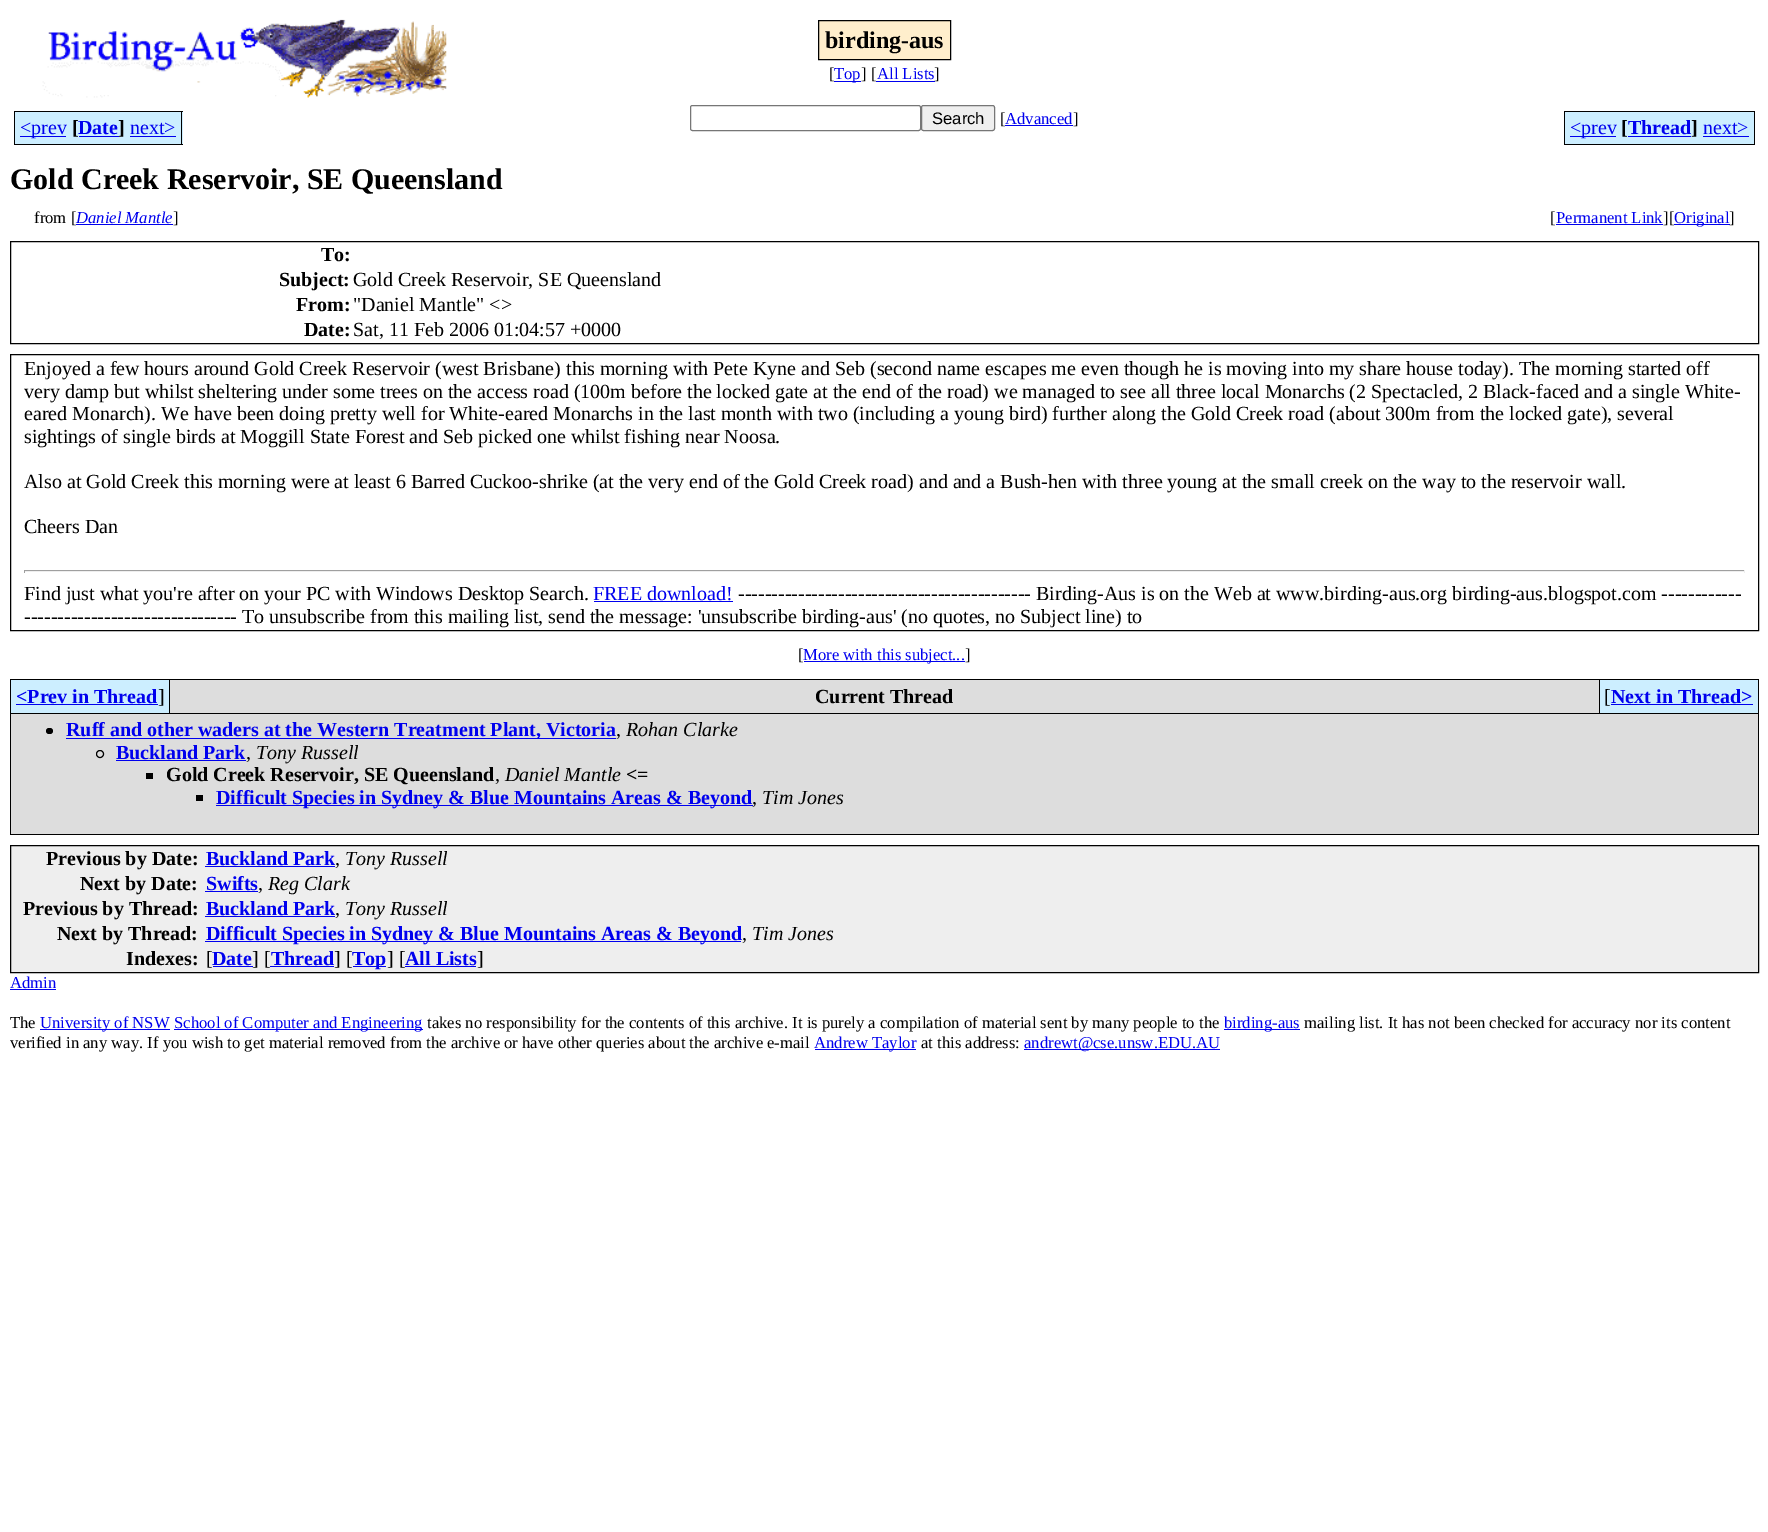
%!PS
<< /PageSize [1768 1532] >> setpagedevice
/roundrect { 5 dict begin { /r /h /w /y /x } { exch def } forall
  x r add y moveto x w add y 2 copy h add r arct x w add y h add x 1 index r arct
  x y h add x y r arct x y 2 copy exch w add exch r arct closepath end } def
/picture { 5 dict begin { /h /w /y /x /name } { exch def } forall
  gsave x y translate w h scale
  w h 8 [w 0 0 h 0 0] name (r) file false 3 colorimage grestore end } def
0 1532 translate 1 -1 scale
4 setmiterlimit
1 setgray
0 0 1768 1532 rectfill
(img1.rgb) 42 19 405 79 picture
1 0.933 0.8 setrgbcolor
newpath 818.5 20.5 moveto 950.5 20.5 lineto 950.5 59.5 lineto 818.5 59.5 lineto closepath gsave fill grestore
0 setgray
stroke
/LiberationSerif-Bold [24 0 0 -24 0 0] selectfont
825 48 moveto (birding-aus) show
/LiberationSerif-Regular [16.65 0 0 -16.65 0 0] selectfont
829 79 moveto ([) show
0 0 0.933 setrgbcolor
834 81 27 1 rectfill
834 79 moveto (Top) show
0 setgray
861 79 moveto (] [) show
0 0 0.933 setrgbcolor
877 79 moveto (All Lists) show
0 setgray
934 79 moveto (]) show
0 0 0.933 setrgbcolor
876 81 59 1 rectfill
0.8 0.933 1 setrgbcolor
15 112 51 32 rectfill
0 0 0.933 setrgbcolor
20 136 46 1 rectfill
0.8 0.933 1 setrgbcolor
66 111 13 34 rectfill
/LiberationSerif-Regular [20 0 0 -20 0 0] selectfont
0 0 0.933 setrgbcolor
20 134 moveto (<prev) show
0 setgray
14 111 52 1 rectfill
14 144 52 1 rectfill
14 111 1 34 rectfill
66 144 53 1 rectfill
/LiberationSerif-Bold [20 0 0 -20 0 0] selectfont
72 134 moveto ([) show
0.8 0.933 1 setrgbcolor
79 112 40 32 rectfill
0 0 0.933 setrgbcolor
78 134 moveto (Date) show
0 setgray
66 111 53 1 rectfill
0.8 0.933 1 setrgbcolor
119 111 11 34 rectfill
0 setgray
119 111 64 1 rectfill
118 134 moveto (]) show
119 144 11 1 rectfill
0 0 0.933 setrgbcolor
79 136 40 1 rectfill
0.8 0.933 1 setrgbcolor
130 112 53 32 rectfill
/LiberationSerif-Regular [20 0 0 -20 0 0] selectfont
0 0 0.933 setrgbcolor
130 134 moveto (next>) show
0 setgray
181 111 1 34 rectfill
130 144 53 1 rectfill
0 0 0.933 setrgbcolor
130 136 46 1 rectfill
0.463 setgray
690.5 105.5 230 25 2 roundrect stroke
0.937 setgray
921.5 105.5 73 25 2 roundrect gsave fill grestore
0.463 setgray
stroke
/LiberationSans-Regular [16.65 0 0 -16.65 0 0] selectfont
0 setgray
932 124 moveto (Search) show
/LiberationSerif-Regular [16.65 0 0 -16.65 0 0] selectfont
1000 124 moveto ([) show
0 0 0.933 setrgbcolor
1005 125 68 1 rectfill
1005 124 moveto (Advanced) show
0 setgray
1073 124 moveto (]) show
0.8 0.933 1 setrgbcolor
1565 112 51 32 rectfill
0 0 0.933 setrgbcolor
1570 136 46 1 rectfill
0.8 0.933 1 setrgbcolor
1616 111 12 34 rectfill
/LiberationSerif-Regular [20 0 0 -20 0 0] selectfont
0 0 0.933 setrgbcolor
1570 134 moveto (<prev) show
0 setgray
1564 111 52 1 rectfill
1564 144 52 1 rectfill
1564 111 1 34 rectfill
1616 144 75 1 rectfill
/LiberationSerif-Bold [20 0 0 -20 0 0] selectfont
1621 134 moveto ([) show
0.8 0.933 1 setrgbcolor
1628 112 63 32 rectfill
0 0 0.933 setrgbcolor
1628 136 63 1 rectfill
0.8 0.933 1 setrgbcolor
1691 111 12 34 rectfill
0 0 0.933 setrgbcolor
1628 134 moveto (Thread) show
0 setgray
1616 111 75 1 rectfill
1691 111 64 1 rectfill
1691 134 moveto (]) show
1691 144 12 1 rectfill
0.8 0.933 1 setrgbcolor
1703 112 51 32 rectfill
/LiberationSerif-Regular [20 0 0 -20 0 0] selectfont
0 0 0.933 setrgbcolor
1703 134 moveto (next>) show
0 setgray
1754 111 1 34 rectfill
1703 144 52 1 rectfill
0 0 0.933 setrgbcolor
1703 136 46 1 rectfill
/LiberationSerif-Bold [30 0 0 -30 0 0] selectfont
0 setgray
10 189 moveto (Gold Creek Reservoir, SE Queensland) show
/LiberationSerif-Regular [16.65 0 0 -16.65 0 0] selectfont
34 223 moveto (from [) show
0 0 0.933 setrgbcolor
76 224 97 1 rectfill
/LiberationSerif-Italic [16.65 0 0 -16.65 0 0] selectfont
76 223 moveto (Daniel Mantle) show
/LiberationSerif-Regular [16.65 0 0 -16.65 0 0] selectfont
0 setgray
173 223 moveto (]) show
1550 223 moveto ([) show
0 0 0.933 setrgbcolor
1556 224 107 1 rectfill
1556 223 moveto (Permanent Link) show
0 setgray
1663 223 moveto (][) show
0 0 0.933 setrgbcolor
1674 224 56 1 rectfill
1674 223 moveto (Original) show
0 setgray
1729 223 moveto (]) show
10.5 241.5 1748 102 rectstroke
/LiberationSerif-Bold [20 0 0 -20 0 0] selectfont
321 261 moveto (To:) show
279 286 moveto (Subject:) show
/LiberationSerif-Regular [20 0 0 -20 0 0] selectfont
353 286 moveto (Gold Creek Reservoir, SE Queensland) show
/LiberationSerif-Bold [20 0 0 -20 0 0] selectfont
296 311 moveto (From:) show
/LiberationSerif-Regular [20 0 0 -20 0 0] selectfont
353 311 moveto ("Daniel Mantle" <>) show
/LiberationSerif-Bold [20 0 0 -20 0 0] selectfont
304 336 moveto (Date:) show
/LiberationSerif-Regular [20 0 0 -20 0 0] selectfont
353 336 moveto (Sat, 11 Feb 2006 01:04:57 +0000) show
10.5 354.5 1748 276 rectstroke
24 375 moveto (Enjoyed a few hours around Gold Creek Reservoir \(west Brisbane\) this morning with Pete Kyne and Seb \(second name escapes me even though he is moving into my share house today\). The morning started off) show
24 398 moveto (very damp but whilst sheltering under some trees on the access road \(100m before the locked gate at the end of the road\) we managed to see all three local Monarchs \(2 Spectacled, 2 Black-faced and a single White-) show
24 420 moveto (eared Monarch\). We have been doing pretty well for White-eared Monarchs in the last month with two \(including a young bird\) further along the Gold Creek road \(about 300m from the locked gate\), several) show
24 443 moveto (sightings of single birds at Moggill State Forest and Seb picked one whilst fishing near Noosa.) show
24 488 moveto (Also at Gold Creek this morning were at least 6 Barred Cuckoo-shrike \(at the very end of the Gold Creek road\) and and a Bush-hen with three young at the small creek on the way to the reservoir wall.) show
24 533 moveto (Cheers Dan) show
0.624 setgray
24 570 1721 1 rectfill
0.933 setgray
1744 570 1 3 rectfill
24 571 1721 1 rectfill
0.624 setgray
24 570 1 3 rectfill
0 setgray
24 600 moveto (Find just what you're after on your PC with Windows Desktop Search.) show
0 0 0.933 setrgbcolor
593 600 moveto (FREE download!) show
594 601 139 1 rectfill
0 setgray
738 600 moveto (-------------------------------------------- Birding-Aus is on the Web at www.birding-aus.org birding-aus.blogspot.com ------------) show
24 623 moveto (-------------------------------- To unsubscribe from this mailing list, send the message: 'unsubscribe birding-aus' \(no quotes, no Subject line\) to) show
/LiberationSerif-Regular [16.65 0 0 -16.65 0 0] selectfont
798 660 moveto ([) show
0 0 0.933 setrgbcolor
804 661 161 1 rectfill
803 660 moveto (More with this subject...) show
0 setgray
965 660 moveto (]) show
10 679 1749 156 rectfill
0.8 0.933 1 setrgbcolor
11 680 158 33 rectfill
/LiberationSerif-Bold [20 0 0 -20 0 0] selectfont
0 0 0.933 setrgbcolor
16 703 moveto (<Prev in Thread) show
16 704 142 1 rectfill
/LiberationSerif-Regular [20 0 0 -20 0 0] selectfont
0 setgray
158 703 moveto (]) show
0.867 setgray
170 680 1429 33 rectfill
/LiberationSerif-Bold [20 0 0 -20 0 0] selectfont
0 setgray
815 703 moveto (Current Thread) show
0.8 0.933 1 setrgbcolor
1600 680 158 33 rectfill
/LiberationSerif-Regular [20 0 0 -20 0 0] selectfont
0 setgray
1604 703 moveto ([) show
/LiberationSerif-Bold [20 0 0 -20 0 0] selectfont
0 0 0.933 setrgbcolor
1611 703 moveto (Next in Thread>) show
1611 704 142 1 rectfill
0.867 setgray
11 714 1747 120 rectfill
0 setgray
46 728 7 6 3 roundrect fill
0 0 0.933 setrgbcolor
66 738 550 1 rectfill
66 736 moveto (Ruff and other waders at the Western Treatment Plant, Victoria) show
/LiberationSerif-Italic [20 0 0 -20 0 0] selectfont
0 setgray
626 736 moveto (Rohan Clarke) show
/LiberationSerif-Regular [20 0 0 -20 0 0] selectfont
616 736 moveto (,) show
newpath 100 754 3.5 0 360 arc closepath stroke
/LiberationSerif-Bold [20 0 0 -20 0 0] selectfont
0 0 0.933 setrgbcolor
116 759 moveto (Buckland Park) show
116 760 130 1 rectfill
/LiberationSerif-Italic [20 0 0 -20 0 0] selectfont
0 setgray
256 759 moveto (Tony Russell) show
/LiberationSerif-Regular [20 0 0 -20 0 0] selectfont
246 759 moveto (,) show
146 773 7 6 rectfill
/LiberationSerif-Bold [20 0 0 -20 0 0] selectfont
166 781 moveto (Gold Creek Reservoir, SE Queensland) show
/LiberationSerif-Italic [20 0 0 -20 0 0] selectfont
505 781 moveto (Daniel Mantle) show
/LiberationSerif-Bold [20 0 0 -20 0 0] selectfont
626 781 moveto (<=) show
/LiberationSerif-Regular [20 0 0 -20 0 0] selectfont
495 781 moveto (,) show
196 795 7 6 rectfill
0 0 0.933 setrgbcolor
216 805 537 1 rectfill
/LiberationSerif-Bold [20 0 0 -20 0 0] selectfont
216 804 moveto (Difficult Species in Sydney & Blue Mountains Areas & Beyond) show
/LiberationSerif-Italic [20 0 0 -20 0 0] selectfont
0 setgray
762 804 moveto (Tim Jones) show
/LiberationSerif-Regular [20 0 0 -20 0 0] selectfont
752 804 moveto (,) show
0.933 setgray
newpath 10.5 845.5 moveto 1758.5 845.5 lineto 1758.5 972.5 lineto 10.5 972.5 lineto closepath gsave fill grestore
0 setgray
stroke
/LiberationSerif-Bold [20 0 0 -20 0 0] selectfont
46 865 moveto (Previous by Date:) show
0 0 0.933 setrgbcolor
206 865 moveto (Buckland Park) show
205 866 130 1 rectfill
/LiberationSerif-Regular [20 0 0 -20 0 0] selectfont
0 setgray
335 865 moveto (,) show
/LiberationSerif-Italic [20 0 0 -20 0 0] selectfont
345 865 moveto (Tony Russell) show
/LiberationSerif-Bold [20 0 0 -20 0 0] selectfont
80 890 moveto (Next by Date:) show
0 0 0.933 setrgbcolor
206 890 moveto (Swifts) show
205 891 53 1 rectfill
/LiberationSerif-Regular [20 0 0 -20 0 0] selectfont
0 setgray
258 890 moveto (,) show
/LiberationSerif-Italic [20 0 0 -20 0 0] selectfont
268 890 moveto (Reg Clark) show
/LiberationSerif-Bold [20 0 0 -20 0 0] selectfont
23 915 moveto (Previous by Thread:) show
0 0 0.933 setrgbcolor
206 915 moveto (Buckland Park) show
205 916 130 1 rectfill
/LiberationSerif-Regular [20 0 0 -20 0 0] selectfont
0 setgray
335 915 moveto (,) show
/LiberationSerif-Italic [20 0 0 -20 0 0] selectfont
345 915 moveto (Tony Russell) show
/LiberationSerif-Bold [20 0 0 -20 0 0] selectfont
57 940 moveto (Next by Thread:) show
0 0 0.933 setrgbcolor
205 941 536 1 rectfill
206 940 moveto (Difficult Species in Sydney & Blue Mountains Areas & Beyond) show
/LiberationSerif-Regular [20 0 0 -20 0 0] selectfont
0 setgray
742 940 moveto (,) show
/LiberationSerif-Italic [20 0 0 -20 0 0] selectfont
752 940 moveto (Tim Jones) show
/LiberationSerif-Bold [20 0 0 -20 0 0] selectfont
126 965 moveto (Indexes:) show
/LiberationSerif-Regular [20 0 0 -20 0 0] selectfont
206 965 moveto ([) show
/LiberationSerif-Bold [20 0 0 -20 0 0] selectfont
0 0 0.933 setrgbcolor
212 965 moveto (Date) show
213 966 40 1 rectfill
/LiberationSerif-Regular [20 0 0 -20 0 0] selectfont
0 setgray
252 965 moveto (] [) show
/LiberationSerif-Bold [20 0 0 -20 0 0] selectfont
0 0 0.933 setrgbcolor
271 965 moveto (Thread) show
270 966 64 1 rectfill
/LiberationSerif-Regular [20 0 0 -20 0 0] selectfont
0 setgray
334 965 moveto (] [) show
0 0 0.933 setrgbcolor
353 966 33 1 rectfill
/LiberationSerif-Bold [20 0 0 -20 0 0] selectfont
352 965 moveto (Top) show
/LiberationSerif-Regular [20 0 0 -20 0 0] selectfont
0 setgray
387 965 moveto (] [) show
/LiberationSerif-Bold [20 0 0 -20 0 0] selectfont
0 0 0.933 setrgbcolor
405 965 moveto (All Lists) show
405 966 71 1 rectfill
/LiberationSerif-Regular [20 0 0 -20 0 0] selectfont
0 setgray
477 965 moveto (]) show
/LiberationSerif-Regular [16.65 0 0 -16.65 0 0] selectfont
0 0 0.933 setrgbcolor
10 988 moveto (Admin) show
10 989 46 1 rectfill
0 setgray
10 1028 moveto (The) show
0 0 0.933 setrgbcolor
40 1029 130 1 rectfill
40 1028 moveto (University of NSW) show
174 1029 249 1 rectfill
174 1028 moveto (School of Computer and Engineering) show
0 setgray
427 1028 moveto (takes no responsibility for the contents of this archive. It is purely a compilation of material sent by many people to the) show
0 0 0.933 setrgbcolor
1224 1029 76 1 rectfill
1224 1028 moveto (birding-aus) show
0 setgray
1304 1028 moveto (mailing list. It has not been checked for accuracy nor its content) show
10 1048 moveto (verified in any way. If you wish to get material removed from the archive or have other queries about the archive e-mail) show
0 0 0.933 setrgbcolor
815 1049 101 1 rectfill
814 1048 moveto (Andrew Taylor) show
0 setgray
921 1048 moveto (at this address:) show
0 0 0.933 setrgbcolor
1024 1049 196 1 rectfill
1024 1048 moveto (andrewt@cse.unsw.EDU.AU) show
showpage
